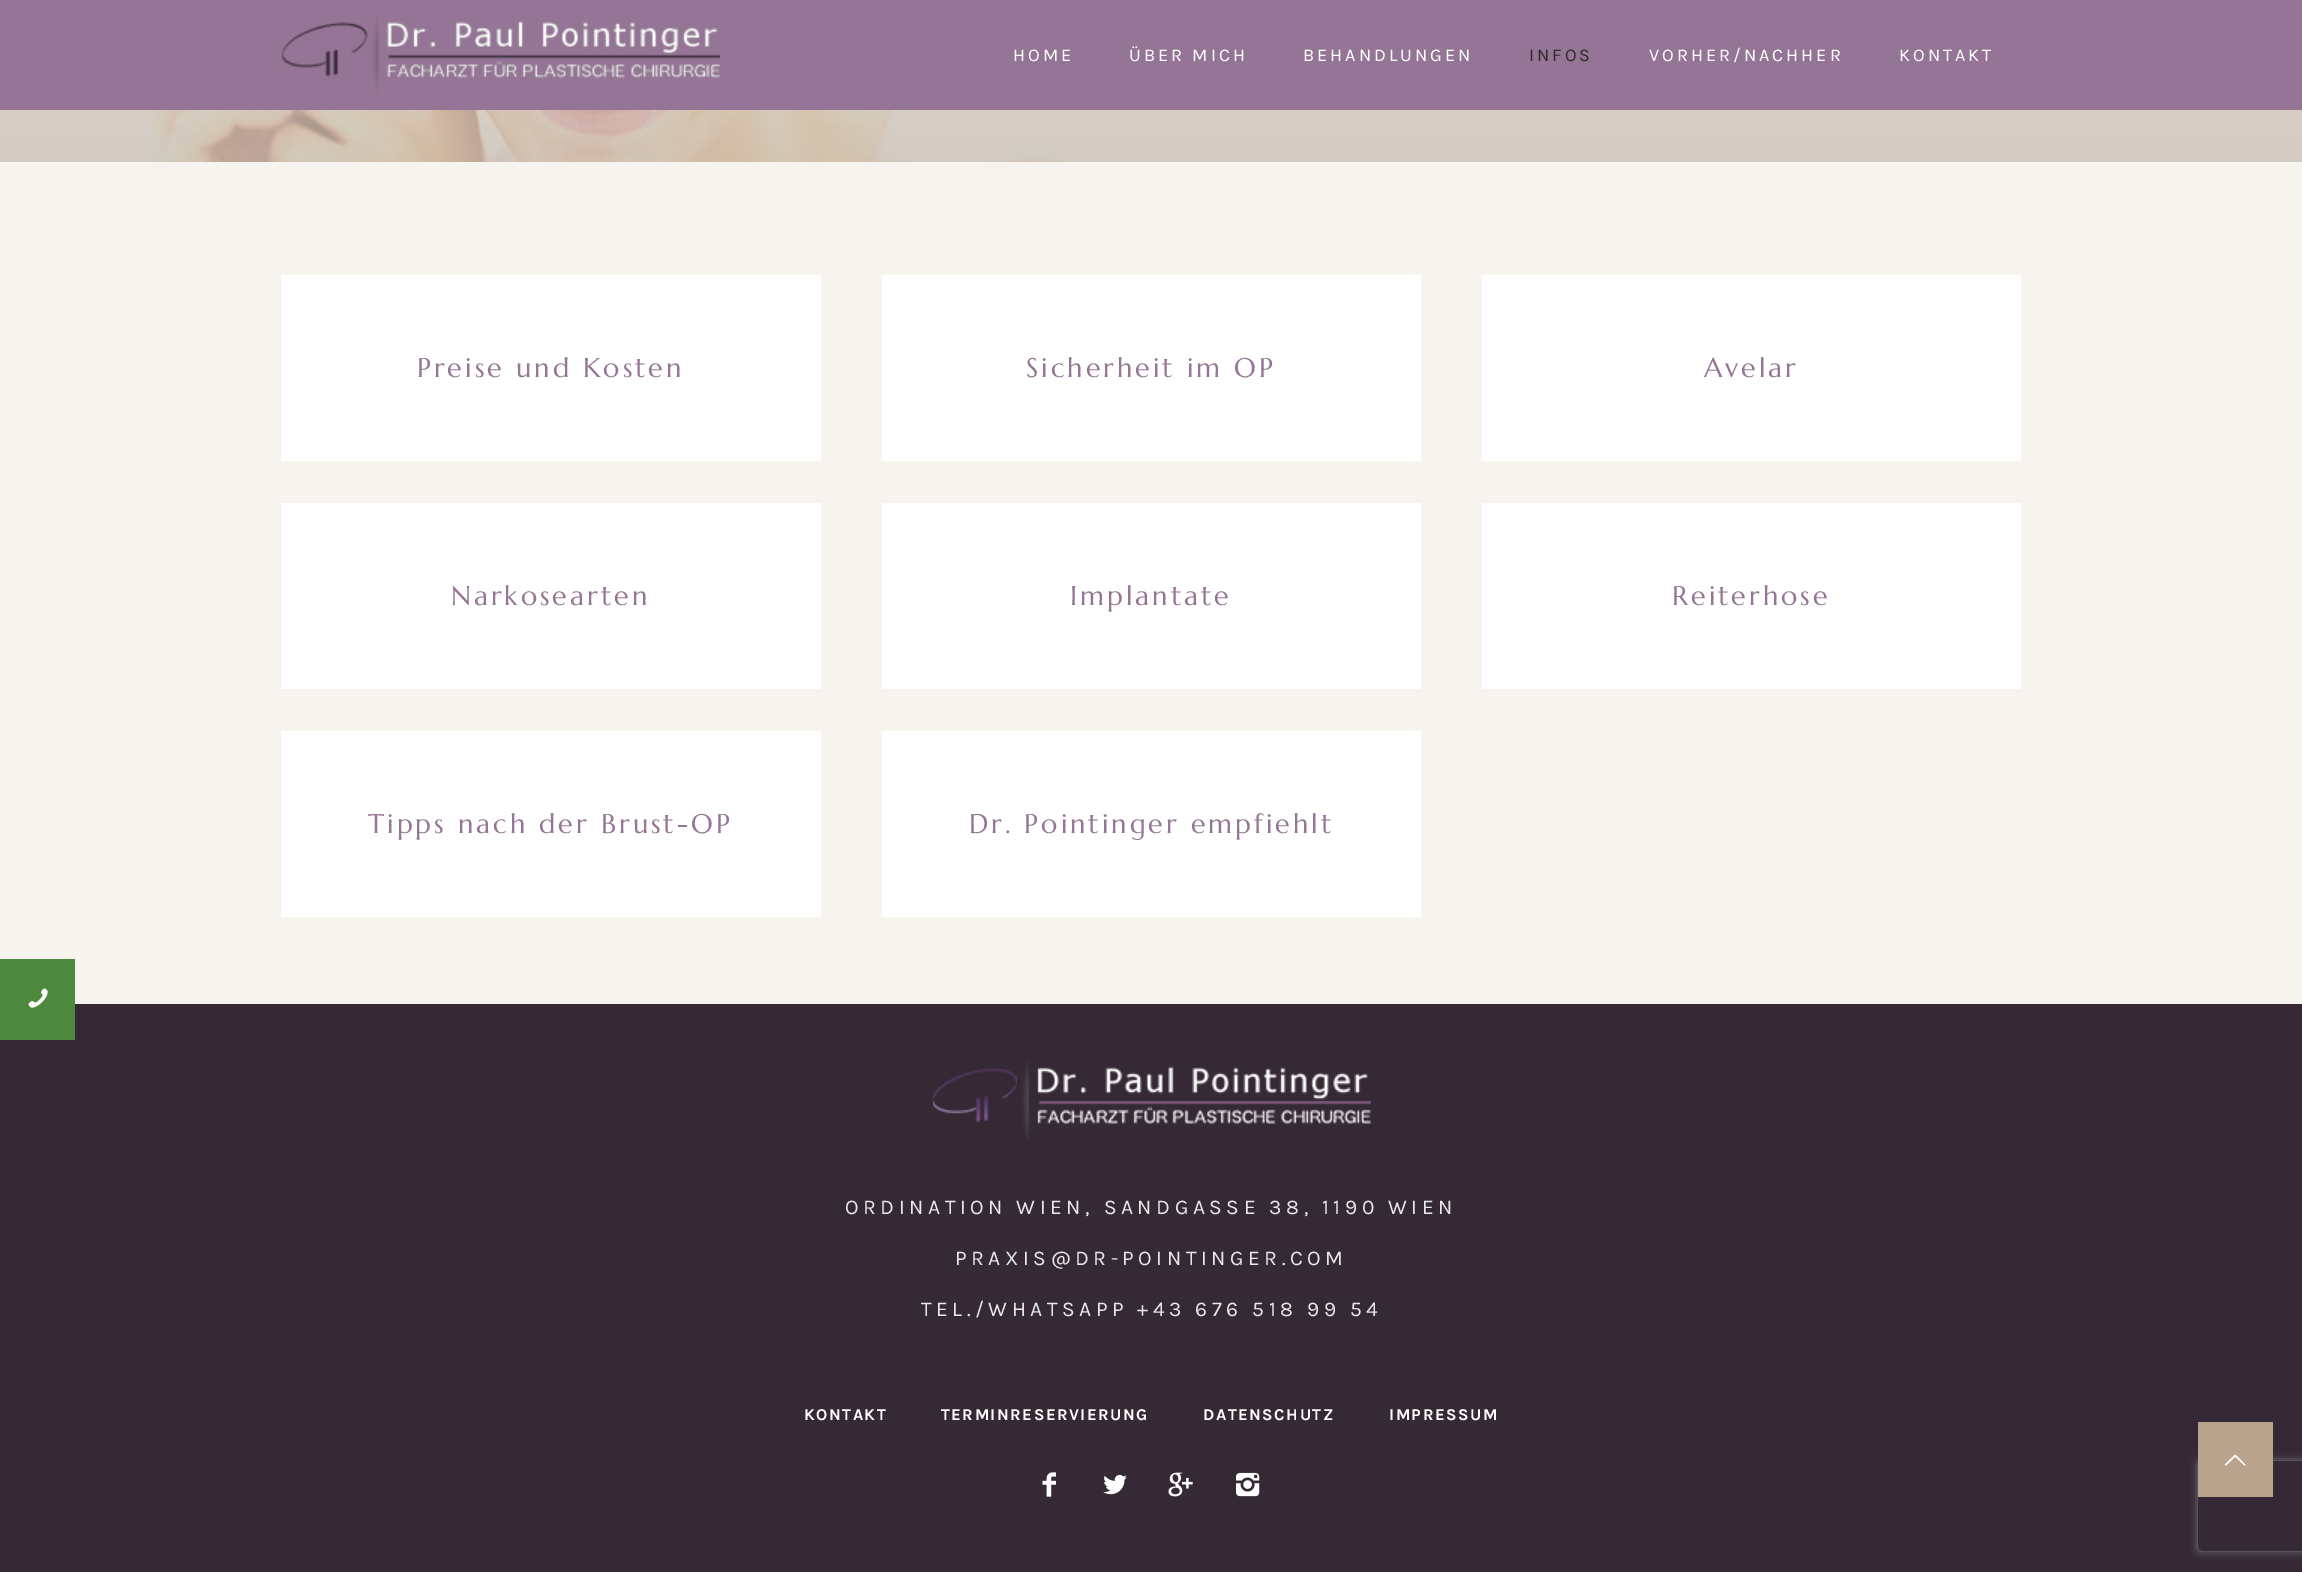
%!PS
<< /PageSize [2302 1572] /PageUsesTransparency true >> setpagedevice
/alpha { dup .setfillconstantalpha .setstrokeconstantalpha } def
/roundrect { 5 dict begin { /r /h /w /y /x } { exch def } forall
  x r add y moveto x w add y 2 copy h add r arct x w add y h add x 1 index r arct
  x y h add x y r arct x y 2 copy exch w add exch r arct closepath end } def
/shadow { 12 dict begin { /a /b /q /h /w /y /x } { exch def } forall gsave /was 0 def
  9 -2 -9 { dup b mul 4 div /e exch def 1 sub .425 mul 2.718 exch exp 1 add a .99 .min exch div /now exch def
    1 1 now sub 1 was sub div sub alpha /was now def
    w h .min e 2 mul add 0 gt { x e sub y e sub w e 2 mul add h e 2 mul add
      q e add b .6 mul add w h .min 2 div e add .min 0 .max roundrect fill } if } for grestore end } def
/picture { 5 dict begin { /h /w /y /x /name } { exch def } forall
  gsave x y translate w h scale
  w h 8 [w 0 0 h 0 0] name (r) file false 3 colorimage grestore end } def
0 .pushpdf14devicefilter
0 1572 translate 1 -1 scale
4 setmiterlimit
0.969 0.957 0.941 setrgbcolor
0 0 2302 1572 rectfill
0.208 0.161 0.208 setrgbcolor
0 1004 2302 568 rectfill
0.306 0.541 0.243 setrgbcolor
0 959 75 81 rectfill
(img1.rgb) 28 988 20 20 picture
0.584 0.459 0.584 setrgbcolor
0 0 2302 110 rectfill
(img2.rgb) 281 17 439 75 picture
/Karla-Regular [18 0 0 -18 0 0] selectfont
1 setgray
1013 61 moveto 3 0 (HOME) ashow
1129 61 moveto 3 0 (ÜBER MICH) ashow
1303 61 moveto 3 0 (BEHANDLUNGEN) ashow
0.176 0.165 0.153 setrgbcolor
1529 61 moveto 3 0 (INFOS) ashow
1 setgray
1649 61 moveto 3 0 (VORHER/NACHHER) ashow
1899 61 moveto 3 0 (KONTAKT) ashow
(img3.rgb) 0 110 2302 52 picture
281 275 540 186 rectfill
/Marcellus-Regular [27 0 0 -27 0 0] selectfont
0.584 0.459 0.584 setrgbcolor
417 377 moveto 3 0 (Preise und Kosten) ashow
1 setgray
882 275 539 186 rectfill
0.584 0.459 0.584 setrgbcolor
1026 377 moveto 3 0 (Sicherheit im OP) ashow
1 setgray
1482 275 539 186 rectfill
0.584 0.459 0.584 setrgbcolor
1704 377 moveto 3 0 (Avelar) ashow
1 setgray
281 503 540 186 rectfill
0.584 0.459 0.584 setrgbcolor
451 605 moveto 3 0 (Narkosearten) ashow
1 setgray
882 503 539 186 rectfill
0.584 0.459 0.584 setrgbcolor
1070 605 moveto 3 0 (Implantate) ashow
1 setgray
1482 503 539 186 rectfill
0.584 0.459 0.584 setrgbcolor
1672 605 moveto 3 0 (Reiterhose) ashow
1 setgray
281 731 540 186 rectfill
0.584 0.459 0.584 setrgbcolor
368 833 moveto 3 0 (Tipps nach der Brust-OP) ashow
1 setgray
882 731 539 186 rectfill
0.584 0.459 0.584 setrgbcolor
969 833 moveto 3 0 (Dr. Pointinger empfiehlt) ashow
gsave
newpath 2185 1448 moveto 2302 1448 lineto 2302 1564 lineto 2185 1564 lineto closepath 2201 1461 moveto 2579 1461 lineto 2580.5 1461 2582 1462.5 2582 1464 curveto 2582 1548 lineto 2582 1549.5 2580.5 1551 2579 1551 curveto 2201 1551 lineto 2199.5 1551 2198 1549.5 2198 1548 curveto 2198 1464 lineto 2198 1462.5 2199.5 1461 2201 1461 curveto closepath eoclip newpath
0.502 setgray
2198 1461 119 90 3 4 1 shadow
grestore
0.722 0.643 0.553 setrgbcolor
2198 1422 75 75 rectfill
(img4.rgb) 2224 1454 22 12 picture
(img5.rgb) 933 1061 438 78 picture
/Karla-Regular [21 0 0 -21 0 0] selectfont
0.91 setgray
845 1214 moveto 4.5 0 (ORDINATION WIEN, SANDGASSE 38, 1190 WIEN) ashow
955 1265 moveto 4.5 0 (PRAXIS@DR-POINTINGER.COM) ashow
921 1316 moveto 4.5 0 (TEL./WHATSAPP +43 676 518 99 54) ashow
/Karla-Bold [16.5 0 0 -16.5 0 0] selectfont
1 setgray
804 1420 moveto 1.5 0 (KONTAKT) ashow
941 1420 moveto 1.5 0 (TERMINRESERVIERUNG) ashow
1203 1420 moveto 1.5 0 (DATENSCHUTZ) ashow
1389 1420 moveto 1.5 0 (IMPRESSUM) ashow
(img6.rgb) 1042 1472 14 25 picture
(img7.rgb) 1103 1474 24 21 picture
(img8.rgb) 1168 1472 25 25 picture
(img9.rgb) 1236 1472 24 25 picture
.poppdf14devicefilter showpage
